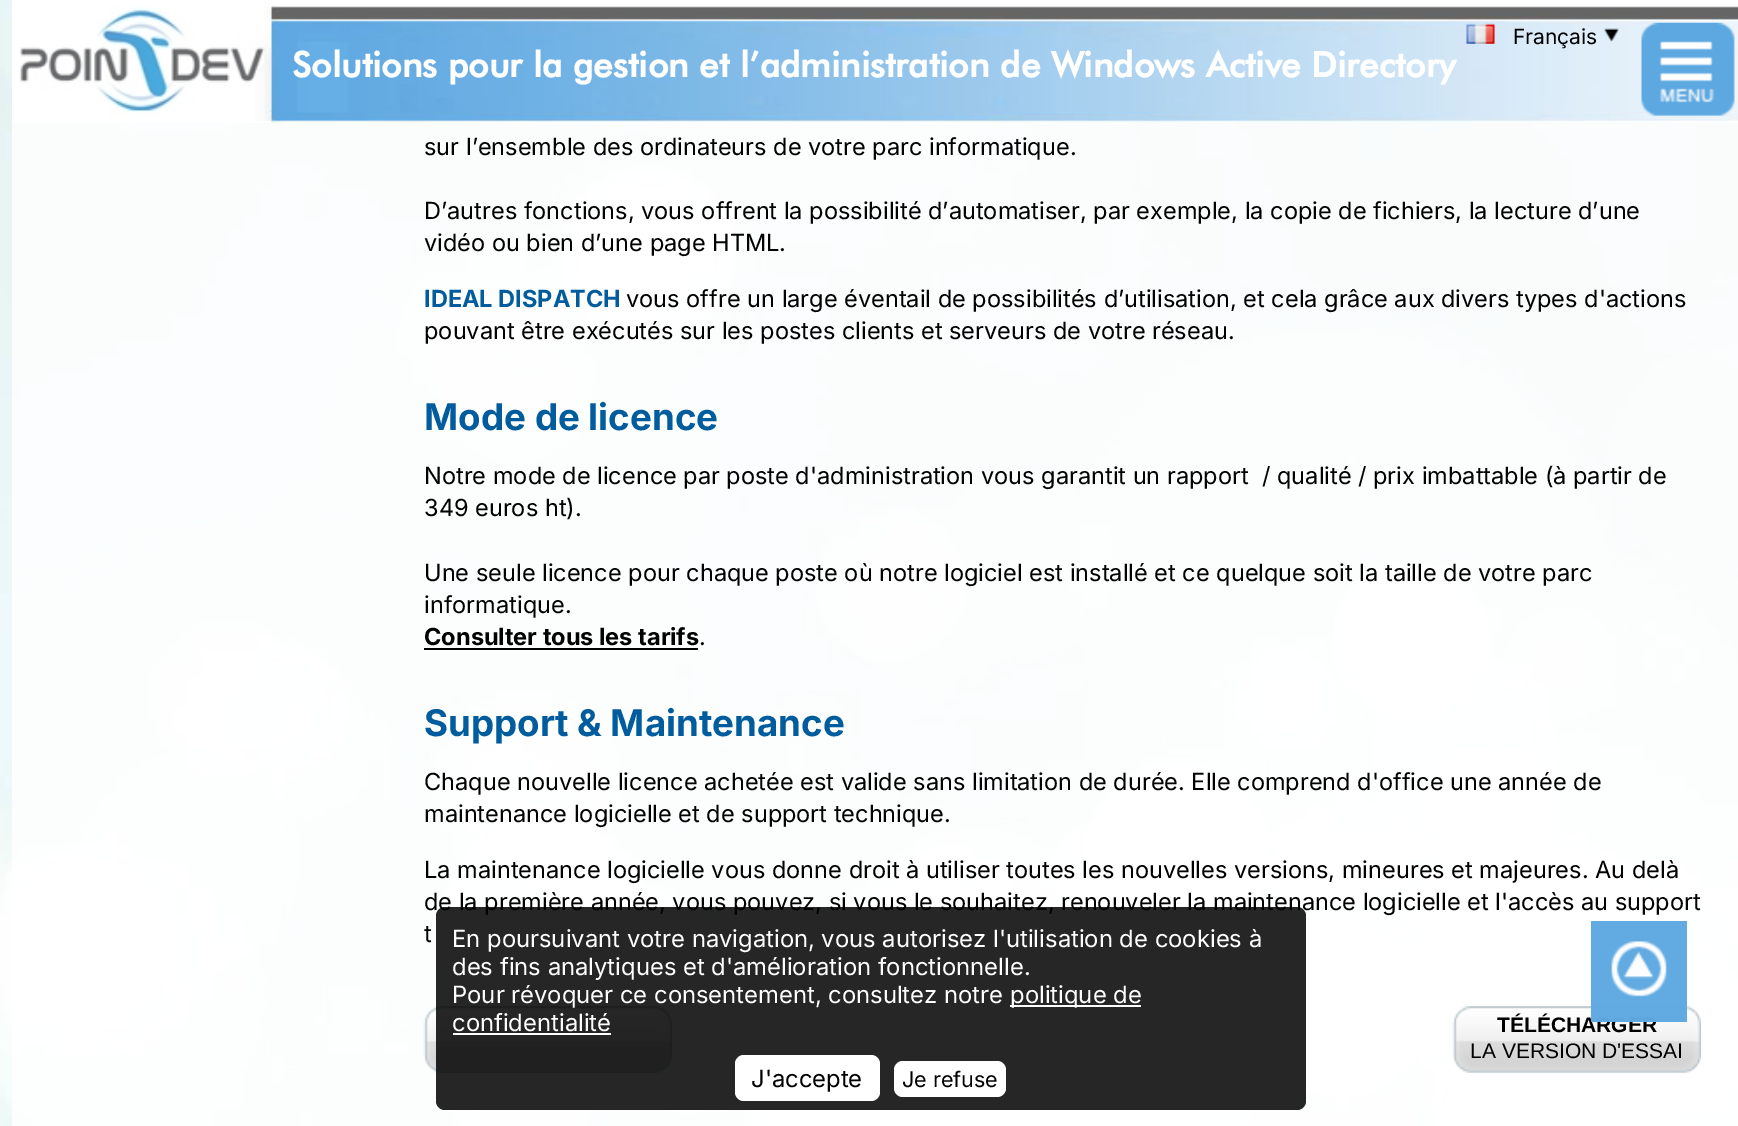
%!PS
<< /PageSize [1738 1126] /PageUsesTransparency true >> setpagedevice
/alpha { dup .setfillconstantalpha .setstrokeconstantalpha } def
/roundrect { 5 dict begin { /r /h /w /y /x } { exch def } forall
  x r add y moveto x w add y 2 copy h add r arct x w add y h add x 1 index r arct
  x y h add x y r arct x y 2 copy exch w add exch r arct closepath end } def
/picture { 5 dict begin { /h /w /y /x /name } { exch def } forall
  gsave x y translate w h scale
  w h 8 [w 0 0 h 0 0] name (r) file false 3 colorimage grestore end } def
0 .pushpdf14devicefilter
0 1126 translate 1 -1 scale
4 setmiterlimit
1 setgray
0 0 1738 1126 rectfill
(img1.rgb) 0 0 1738 1126 picture
12 0 1726 123 rectfill
(img2.rgb) 270 5 1468 118 picture
(img3.rgb) 19 6 253 115 picture
(img4.rgb) 1466 23 29 21 picture
/Inter-Regular [21 0 0 -21 0 0] selectfont
0 setgray
1513 44 moveto (Français) show
(img5.rgb) 1604 28 15 14 picture
(img6.rgb) 1641 22 94 94 picture
/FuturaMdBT-Bold [35 0 0 -35 0 0] selectfont
1 setgray
292 77 moveto (Solutions pour la gestion et l’administration de Windows Active Directory) show
/Inter-Regular [23.55 0 0 -23.55 0 0] selectfont
0 setgray
424 155 moveto (sur l’ensemble des ordinateurs de votre parc informatique.) show
424 219 moveto (D’autres fonctions, vous offrent la possibilité d’automatiser, par exemple, la copie de fichiers, la lecture d’une) show
424 251 moveto (vidéo ou bien d’une page HTML.) show
/Inter-Bold [23.55 0 0 -23.55 0 0] selectfont
0 0.361 0.612 setrgbcolor
424 307 moveto (IDEAL DISPATCH) show
/Inter-Regular [23.55 0 0 -23.55 0 0] selectfont
0 setgray
626 307 moveto (vous offre un large éventail de possibilités d’utilisation, et cela grâce aux divers types d'actions) show
424 339 moveto (pouvant être exécutés sur les postes clients et serveurs de votre réseau.) show
/Inter-Bold [36.75 0 0 -36.75 0 0] selectfont
0 0.361 0.612 setrgbcolor
424 430 moveto (Mode de licence) show
/Inter-Regular [23.55 0 0 -23.55 0 0] selectfont
0 setgray
424 484 moveto (Notre mode de licence par poste d'administration vous garantit un rapport  / qualité / prix imbattable \(à partir de) show
424 516 moveto (349 euros ht\).) show
424 581 moveto (Une seule licence pour chaque poste où notre logiciel est installé et ce quelque soit la taille de votre parc) show
424 613 moveto (informatique.) show
/Inter-Bold [23.55 0 0 -23.55 0 0] selectfont
424 645 moveto (Consulter tous les tarifs) show
424 648 274 2 rectfill
/Inter-Regular [23.55 0 0 -23.55 0 0] selectfont
699 645 moveto (.) show
/Inter-Bold [36.75 0 0 -36.75 0 0] selectfont
0 0.361 0.612 setrgbcolor
424 736 moveto (Support & Maintenance) show
/Inter-Regular [23.55 0 0 -23.55 0 0] selectfont
0 setgray
424 790 moveto (Chaque nouvelle licence achetée est valide sans limitation de durée. Elle comprend d'office une année de) show
424 822 moveto (maintenance logicielle et de support technique.) show
424 878 moveto (La maintenance logicielle vous donne droit à utiliser toutes les nouvelles versions, mineures et majeures. Au delà) show
424 910 moveto (de la première année, vous pouvez, si vous le souhaitez, renouveler la maintenance logicielle et l'accès au support) show
424 942 moveto (t) show
(img7.rgb) 423 1006 249 67 picture
(img8.rgb) 1452 1006 249 67 picture
/LiberationSans-Bold [21 0 0 -21 0 0] selectfont
1497 1032 moveto (TÉLÉCHARGER) show
/LiberationSans-Regular [21 0 0 -21 0 0] selectfont
1470 1058 moveto (LA VERSION D'ESSAI) show
0.85 alpha
436 907 870 203 9 roundrect fill
/Inter-Regular [23.8 0 0 -23.8 0 0] selectfont
1 alpha
1 setgray
452 947 moveto (En poursuivant votre navigation, vous autorisez l'utilisation de cookies à) show
452 975 moveto (des fins analytiques et d'amélioration fonctionnelle.) show
452 1003 moveto (Pour révoquer ce consentement, consultez notre) show
1010 1005 131 2 rectfill
1010 1003 moveto (politique de) show
452 1031 moveto (confidentialité) show
453 1033 158 2 rectfill
735 1055 145 46 9 roundrect fill
0 setgray
751 1087 moveto (J'accepte) show
1 setgray
894 1061 112 36 9 roundrect fill
/Inter-Regular [21.5 0 0 -21.5 0 0] selectfont
0 setgray
902 1087 moveto (Je refuse) show
0.98 alpha
0.369 0.659 0.882 setrgbcolor
1591 921 96 101 rectfill
1 alpha
(img9.rgb) 1611 941 56 56 picture
.poppdf14devicefilter showpage
